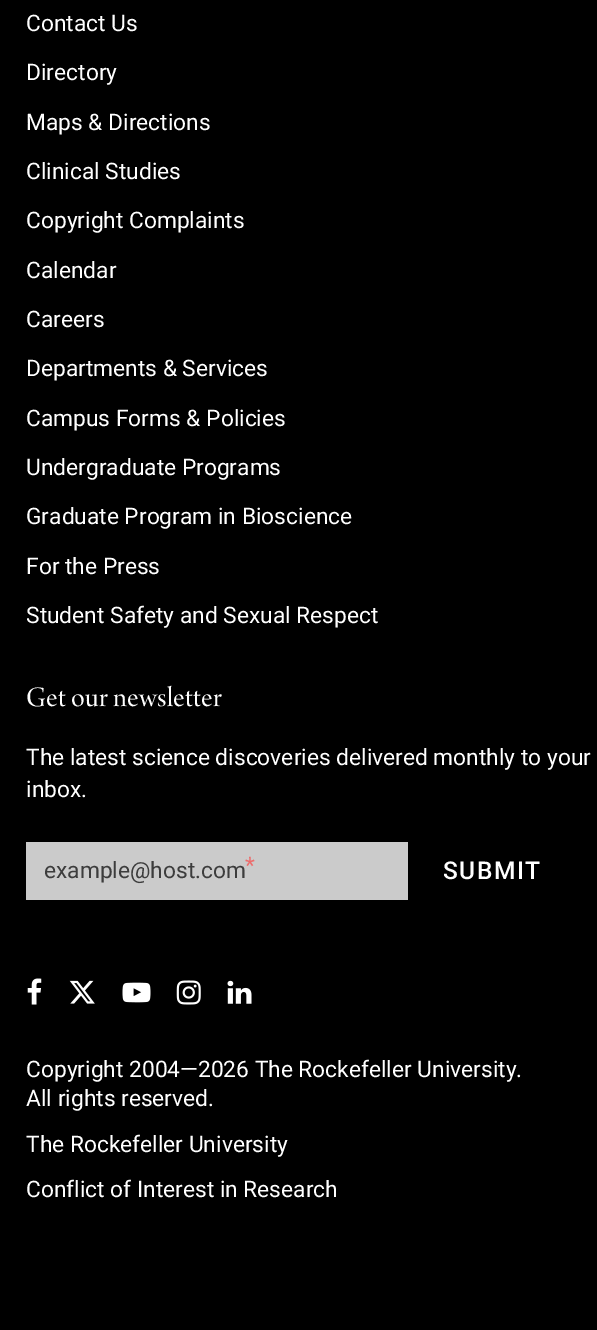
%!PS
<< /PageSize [597 1330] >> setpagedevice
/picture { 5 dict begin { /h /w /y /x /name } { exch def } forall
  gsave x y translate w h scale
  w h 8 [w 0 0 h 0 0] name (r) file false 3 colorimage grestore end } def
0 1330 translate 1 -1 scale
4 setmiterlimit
0 setgray
0 0 597 1330 rectfill
/Roboto-Regular [22.75 0 0 -22.75 0 0] selectfont
1 setgray
26 31 moveto (Contact Us) show
26 80 moveto (Directory) show
26 130 moveto (Maps & Directions) show
26 179 moveto (Clinical Studies) show
26 228 moveto (Copyright Complaints) show
26 278 moveto (Calendar) show
26 327 moveto (Careers) show
26 376 moveto (Departments & Services) show
26 426 moveto (Campus Forms & Policies) show
26 475 moveto (Undergraduate Programs) show
26 524 moveto (Graduate Program in Bioscience) show
26 574 moveto (For the Press) show
26 623 moveto (Student Safety and Sexual Respect) show
/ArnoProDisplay-Regular [29.75 0 0 -29.75 0 0] selectfont
26 706 moveto 0.3 0 (Get our newsletter) ashow
/Roboto-Regular [22.75 0 0 -22.75 0 0] selectfont
26 765 moveto (The latest science discoveries delivered monthly to your) show
26 797 moveto (inbox.) show
0.796 setgray
26 842 382 58 rectfill
0.239 setgray
44 878 moveto (example@host.com) show
0.929 0.427 0.427 setrgbcolor
245 873 moveto (*) show
/Roboto-Medium [24.5 0 0 -24.5 0 0] selectfont
1 setgray
443 879 moveto 1.5 0 (SUBMIT) ashow
(img1.rgb) 27 978 15 27 picture
(img2.rgb) 69 980 26 24 picture
(img3.rgb) 122 982 29 21 picture
(img4.rgb) 176 980 25 25 picture
(img5.rgb) 227 980 25 24 picture
/Roboto-Regular [22.75 0 0 -22.75 0 0] selectfont
26 1077 moveto (Copyright 2004—2026 The Rockefeller University.) show
26 1106 moveto (All rights reserved.) show
26 1152 moveto (The Rockefeller University) show
26 1197 moveto (Conflict of Interest in Research) show
showpage
